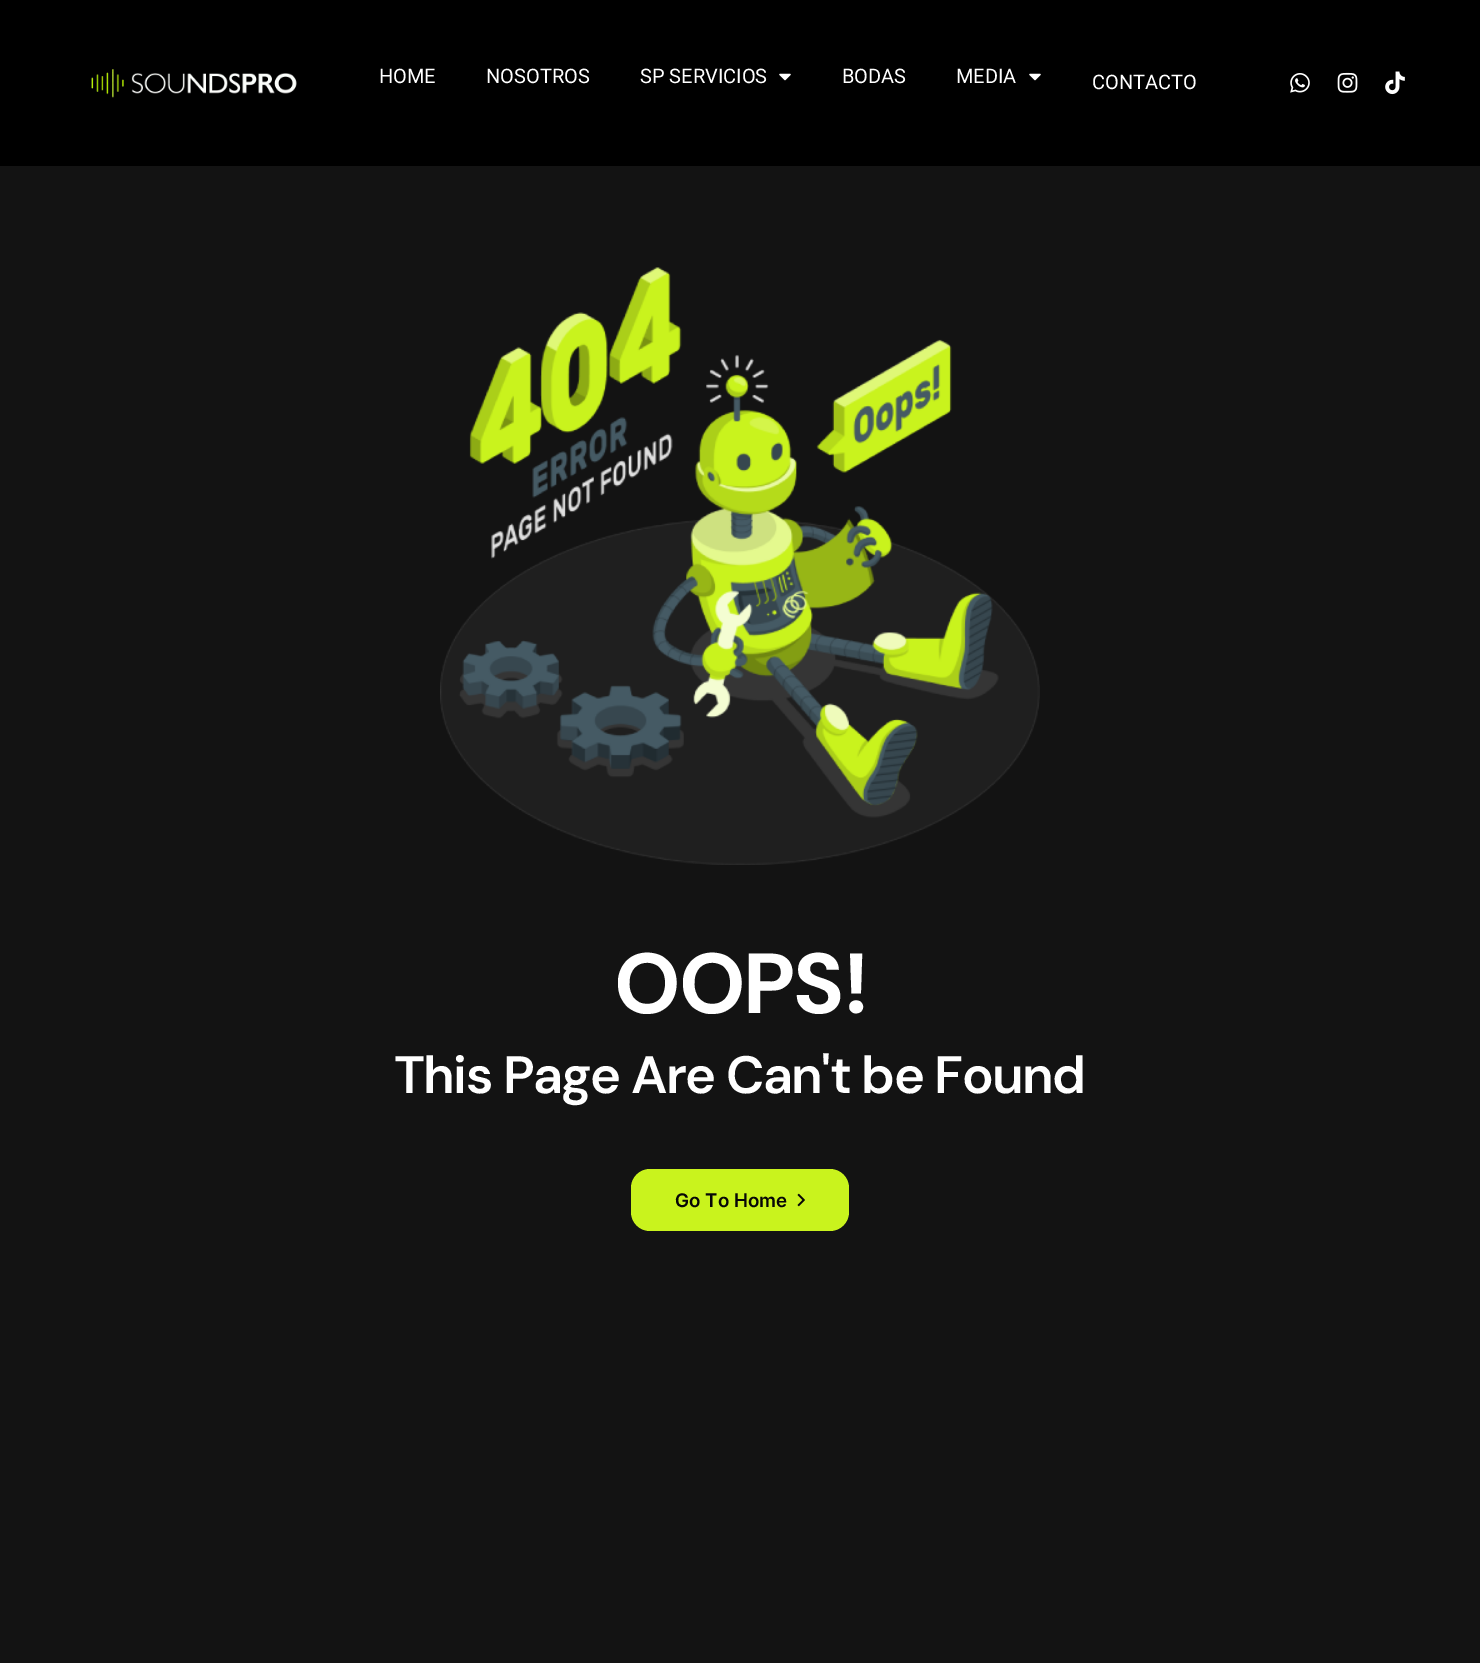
%!PS
<< /PageSize [1480 1663] >> setpagedevice
/roundrect { 5 dict begin { /r /h /w /y /x } { exch def } forall
  x r add y moveto x w add y 2 copy h add r arct x w add y h add x 1 index r arct
  x y h add x y r arct x y 2 copy exch w add exch r arct closepath end } def
/picture { 5 dict begin { /h /w /y /x /name } { exch def } forall
  gsave x y translate w h scale
  w h 8 [w 0 0 h 0 0] name (r) file false 3 colorimage grestore end } def
0 1663 translate 1 -1 scale
4 setmiterlimit
0.075 setgray
0 0 1480 1663 rectfill
0 setgray
0 0 1480 166 rectfill
(img1.rgb) 91 69 206 29 picture
/Roboto-Regular [20 0 0 -20 0 0] selectfont
1 setgray
379 83 moveto (HOME) show
486 83 moveto (NOSOTROS) show
640 83 moveto (SP SERVICIOS) show
(img2.rgb) 779 73 12 8 picture
842 83 moveto (BODAS) show
956 83 moveto (MEDIA) show
(img2.rgb) 1029 73 12 8 picture
1092 89 moveto (CONTACTO) show
(img3.rgb) 1290 73 20 20 picture
(img4.rgb) 1337 72 21 21 picture
(img5.rgb) 1385 71 20 24 picture
(img6.rgb) 440 267 600 598 picture
/DMSans-Bold [85 0 0 -85 0 0] selectfont
614 1013 moveto -2 0 (OOPS!) ashow
/DMSans-SemiBold [52.5 0 0 -52.5 0 0] selectfont
394 1093 moveto -1.6 0 (This Page Are Can't be Found) ashow
0.788 0.953 0.114 setrgbcolor
631 1169 218 62 19 roundrect fill
/Inter-SemiBold [18.75 0 0 -18.75 0 0] selectfont
0.027 setgray
675 1207 moveto (Go To Home) show
(img7.rgb) 797 1193 8 14 picture
showpage
